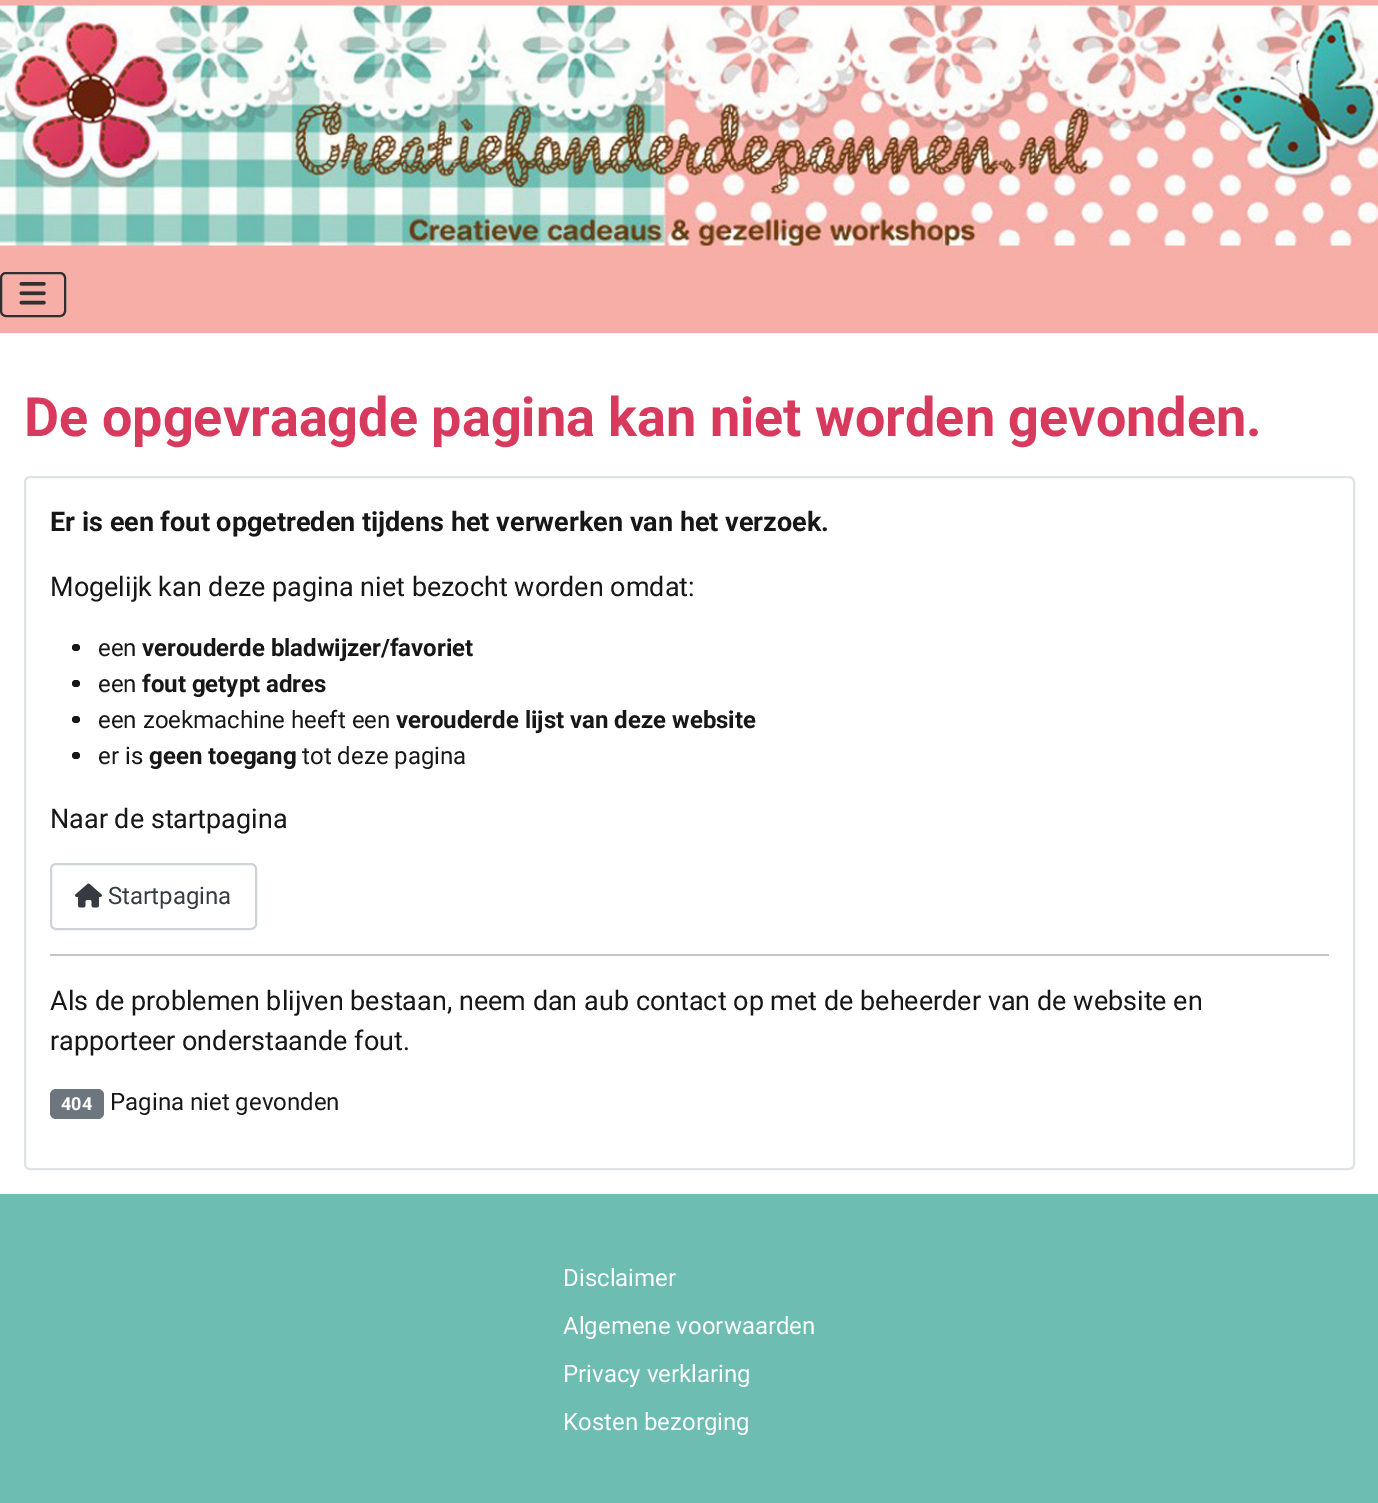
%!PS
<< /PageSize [1378 1503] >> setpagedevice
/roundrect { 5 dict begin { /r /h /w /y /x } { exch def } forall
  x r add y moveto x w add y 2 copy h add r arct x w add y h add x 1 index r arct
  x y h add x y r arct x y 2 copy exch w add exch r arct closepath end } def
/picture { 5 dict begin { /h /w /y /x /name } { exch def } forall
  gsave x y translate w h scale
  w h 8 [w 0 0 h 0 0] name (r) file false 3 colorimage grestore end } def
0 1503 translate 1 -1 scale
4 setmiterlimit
1 setgray
0 0 1378 1503 rectfill
0.969 0.682 0.655 setrgbcolor
0 0 1378 333 rectfill
(img1.rgb) 0 5 1378 241 picture
0.188 setgray
2 setlinewidth
1 273 64 43 5 roundrect stroke
(img2.rgb) 19 282 27 23 picture
/Roboto-Bold [54 0 0 -54 0 0] selectfont
0.843 0.227 0.365 setrgbcolor
24 436 moveto (De opgevraagde pagina kan niet worden gevonden.) show
0.875 0.89 0.906 setrgbcolor
25 477 1329 692 5 roundrect stroke
/Roboto-Bold [27 0 0 -27 0 0] selectfont
0.09 setgray
50 531 moveto (Er is een fout opgetreden tijdens het verwerken van het verzoek.) show
/Roboto-Regular [27 0 0 -27 0 0] selectfont
50 596 moveto (Mogelijk kan deze pagina niet bezocht worden omdat:) show
72 644 8 7 3.5 roundrect fill
/Roboto-Regular [24 0 0 -24 0 0] selectfont
98 656 moveto (een) show
/Roboto-Bold [24 0 0 -24 0 0] selectfont
142 656 moveto (verouderde bladwijzer/favoriet) show
72 680 8 7 3.5 roundrect fill
/Roboto-Regular [24 0 0 -24 0 0] selectfont
98 692 moveto (een) show
/Roboto-Bold [24 0 0 -24 0 0] selectfont
142 692 moveto (fout getypt adres) show
72 716 8 7 3.5 roundrect fill
/Roboto-Regular [24 0 0 -24 0 0] selectfont
98 728 moveto (een zoekmachine heeft een) show
/Roboto-Bold [24 0 0 -24 0 0] selectfont
396 728 moveto (verouderde lijst van deze website) show
72 752 8 7 3.5 roundrect fill
/Roboto-Regular [24 0 0 -24 0 0] selectfont
98 764 moveto (er is) show
/Roboto-Bold [24 0 0 -24 0 0] selectfont
149 764 moveto (geen toegang) show
/Roboto-Regular [24 0 0 -24 0 0] selectfont
302 764 moveto (tot deze pagina) show
/Roboto-Regular [27 0 0 -27 0 0] selectfont
50 828 moveto (Naar de startpagina) show
0.808 0.831 0.855 setrgbcolor
51 864 205 65 5 roundrect stroke
(img3.rgb) 75 883 27 25 picture
/Roboto-Regular [24 0 0 -24 0 0] selectfont
0.208 0.231 0.255 setrgbcolor
108 904 moveto (Startpagina) show
0.773 setgray
50 954 1279 2 rectfill
/Roboto-Regular [27 0 0 -27 0 0] selectfont
0.09 setgray
50 1010 moveto (Als de problemen blijven bestaan, neem dan aub contact op met de beheerder van de website en) show
50 1050 moveto (rapporteer onderstaande fout.) show
0.427 0.459 0.494 setrgbcolor
50 1089 54 30 6 roundrect fill
/Roboto-Bold [18 0 0 -18 0 0] selectfont
1 setgray
61 1110 moveto (404) show
/Roboto-Regular [24 0 0 -24 0 0] selectfont
0.09 setgray
110 1110 moveto (Pagina niet gevonden) show
0.427 0.741 0.698 setrgbcolor
0 1194 1378 309 rectfill
1 setgray
563 1286 moveto (Disclaimer) show
563 1334 moveto (Algemene voorwaarden) show
563 1382 moveto (Privacy verklaring) show
563 1430 moveto (Kosten bezorging) show
showpage
